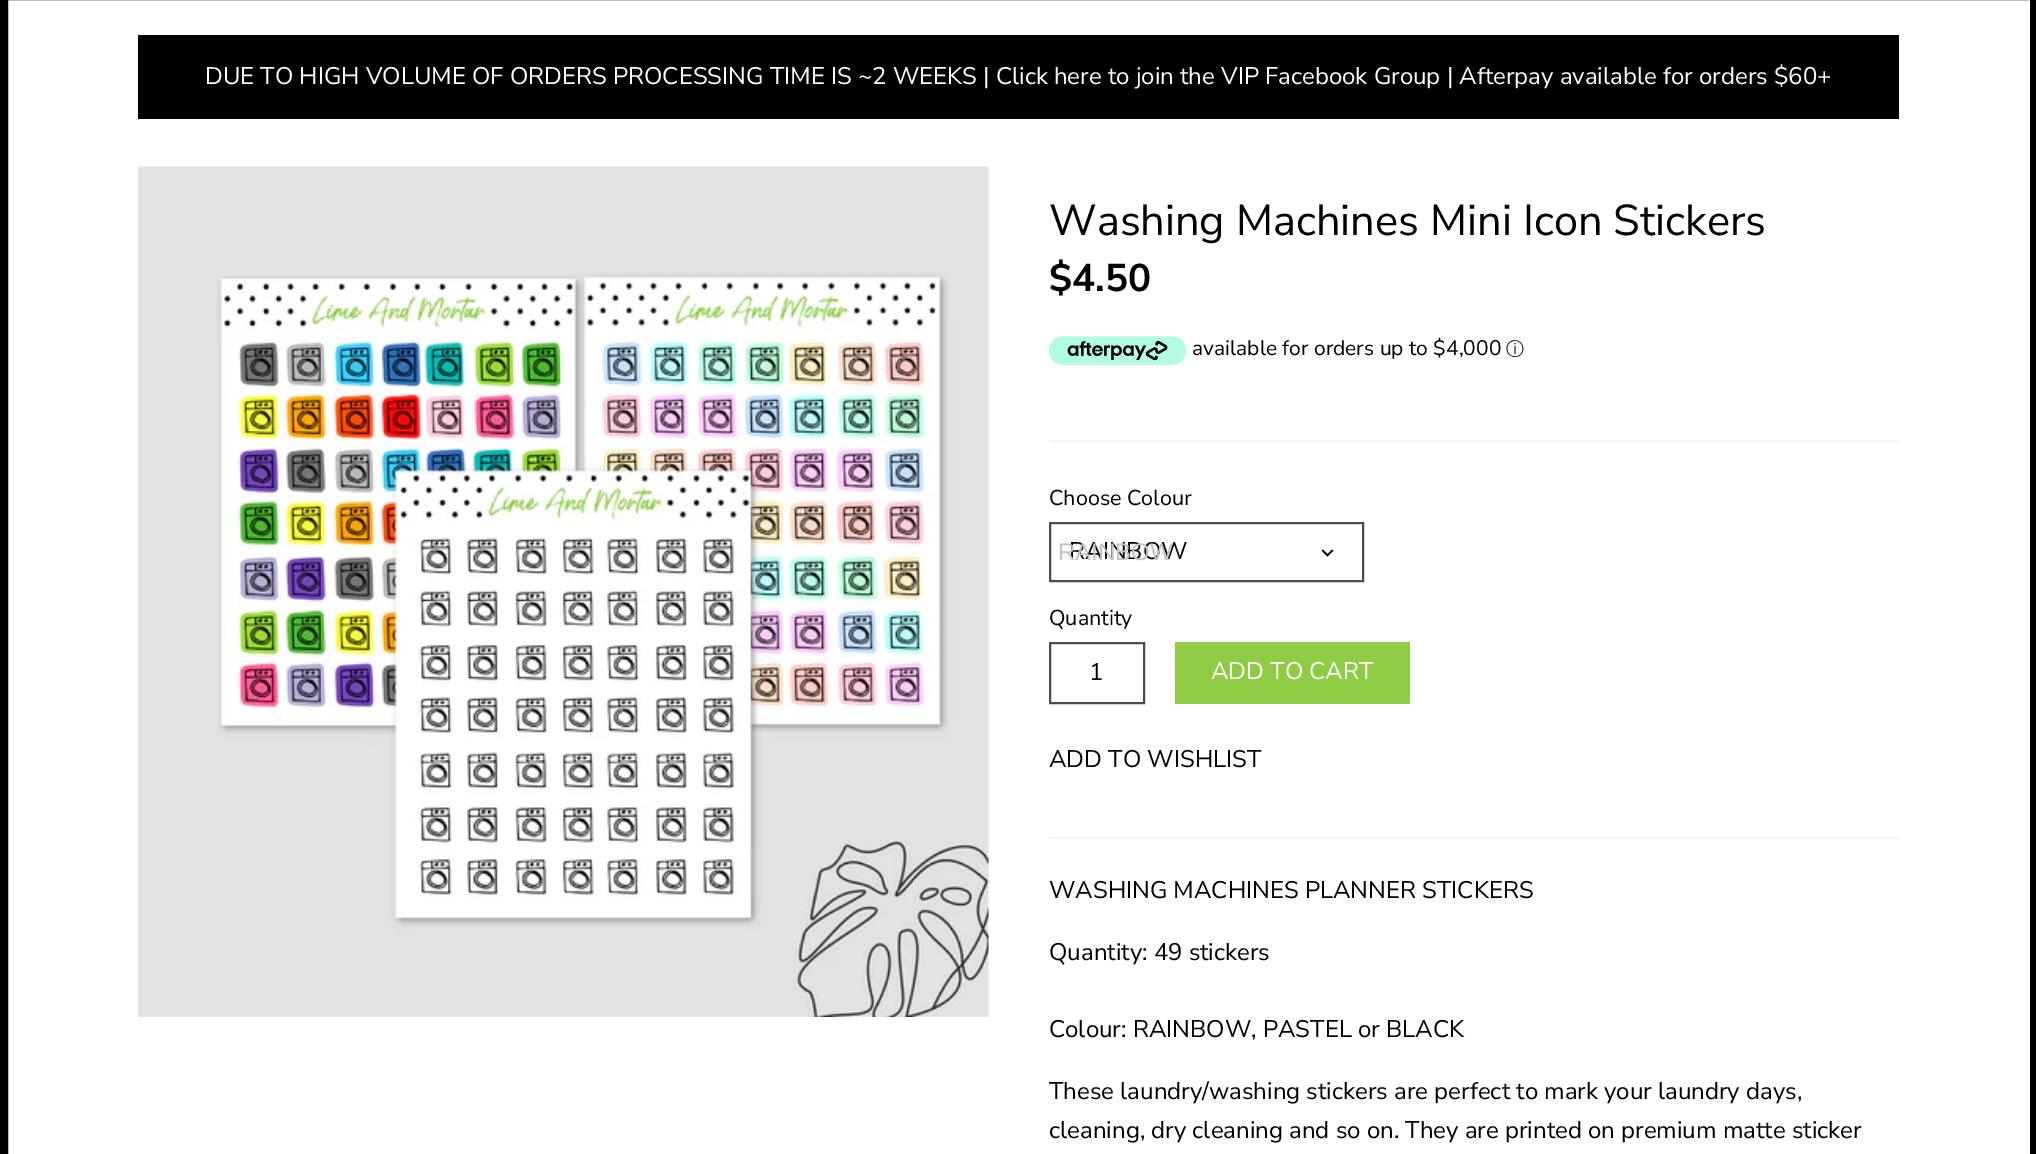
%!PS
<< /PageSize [2036 1154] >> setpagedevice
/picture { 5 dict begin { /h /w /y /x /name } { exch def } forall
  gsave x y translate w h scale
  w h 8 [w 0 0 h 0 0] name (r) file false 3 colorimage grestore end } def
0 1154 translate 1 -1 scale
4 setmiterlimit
1 setgray
0 0 2036 1154 rectfill
0 setgray
8 setlinewidth
4 -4 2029 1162 rectstroke
1 setgray
2029 0 1 1154 rectfill
0 setgray
138 35 1761 84 rectfill
/NunitoSans-Regular [24 0 0 -24 0 0] selectfont
1 setgray
205 84 moveto (DUE TO HIGH VOLUME OF ORDERS PROCESSING TIME IS ~2 WEEKS | Click here to join the VIP Facebook Group | Afterpay available for orders $60+) show
(img1.rgb) 138 166 851 851 picture
0.957 setgray
1049 440 850 2 rectfill
/NunitoSans-Regular [43.25 0 0 -43.25 0 0] selectfont
0 setgray
1049 235 moveto (Washing Machines Mini Icon Stickers) show
/NunitoSans-Bold [38.5 0 0 -38.5 0 0] selectfont
1049 291 moveto ($4.50) show
(img2.rgb) 1049 336 138 29 picture
/NunitoSans-Regular [21 0 0 -21 0 0] selectfont
1192 355 moveto (available for orders up to $4,000) show
/WenQuanYiZenHei-Medium [18 0 0 -18 0 0] selectfont
1506 355 moveto (ⓘ) show
0.957 setgray
1049 837 850 2 rectfill
/NunitoSans-Regular [21.5 0 0 -21.5 0 0] selectfont
0 setgray
1049 505 moveto (Choose Colour) show
0.298 setgray
2 setlinewidth
1050 523 313 58 rectstroke
/NunitoSans-Regular [24 0 0 -24 0 0] selectfont
0 setgray
1069 559 moveto (RAINBOW) show
/LiberationSans-Regular [24 0 0 -24 0 0] selectfont
0.765 setgray
1058 560 moveto (RAINBOW) show
(img3.rgb) 1321 549 13 8 picture
/NunitoSans-Regular [21.5 0 0 -21.5 0 0] selectfont
0 setgray
1049 625 moveto (Quantity) show
0.298 setgray
1050 643 94 60 rectstroke
/NunitoSans-Regular [24 0 0 -24 0 0] selectfont
0 setgray
1089 680 moveto (1) show
0.561 0.8 0.263 setrgbcolor
1175 642 235 62 rectfill
1 setgray
1211 679 moveto (ADD TO CART) show
0 setgray
1049 767 moveto (ADD TO WISHLIST) show
1049 898 moveto (WASHING MACHINES PLANNER STICKERS) show
1049 960 moveto (Quantity: 49 stickers) show
1049 1037 moveto (Colour: RAINBOW, PASTEL or BLACK) show
1049 1099 moveto (These laundry/washing stickers are perfect to mark your laundry days,) show
1049 1138 moveto (cleaning, dry cleaning and so on. They are printed on premium matte sticker) show
showpage
